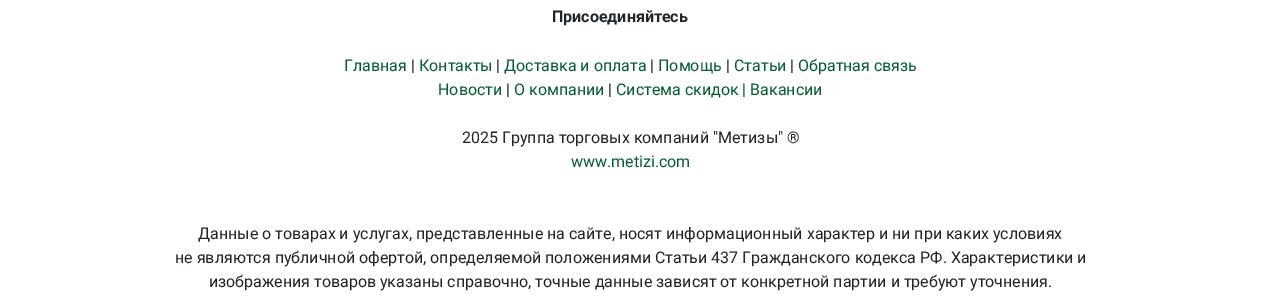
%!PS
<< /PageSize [1261 307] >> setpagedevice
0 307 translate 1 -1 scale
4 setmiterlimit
1 setgray
0 0 1261 307 rectfill
/Roboto-Bold [16 0 0 -16 0 0] selectfont
0.129 0.145 0.161 setrgbcolor
552 22 moveto (Присоединяйтесь) show
/Roboto-Regular [16 0 0 -16 0 0] selectfont
0.016 0.369 0.196 setrgbcolor
344 71 moveto (Главная) show
0.129 0.145 0.161 setrgbcolor
411 71 moveto (|) show
0.016 0.369 0.196 setrgbcolor
419 71 moveto (Контакты) show
0.129 0.145 0.161 setrgbcolor
496 71 moveto (|) show
0.016 0.369 0.196 setrgbcolor
504 71 moveto (Доставка и оплата) show
0.129 0.145 0.161 setrgbcolor
650 71 moveto (|) show
0.016 0.369 0.196 setrgbcolor
658 71 moveto (Помощь) show
0.129 0.145 0.161 setrgbcolor
726 71 moveto (|) show
0.016 0.369 0.196 setrgbcolor
734 71 moveto (Статьи) show
0.129 0.145 0.161 setrgbcolor
790 71 moveto (|) show
0.016 0.369 0.196 setrgbcolor
798 71 moveto (Обратная связь) show
438 95 moveto (Новости) show
0.129 0.145 0.161 setrgbcolor
506 95 moveto (|) show
0.016 0.369 0.196 setrgbcolor
514 95 moveto (О компании) show
0.129 0.145 0.161 setrgbcolor
608 95 moveto (|) show
0.016 0.369 0.196 setrgbcolor
616 95 moveto (Система скидок | Вакансии) show
0.129 0.145 0.161 setrgbcolor
462 143 moveto (2025 Группа торговых компаний "Метизы" ®) show
0.016 0.369 0.196 setrgbcolor
571 167 moveto (www.metizi.com) show
0.129 0.145 0.161 setrgbcolor
198 239 moveto (Данные о товарах и услугах, представленные на сайте, носят информационный характер и ни при каких условиях) show
175 263 moveto (не являются публичной офертой, определяемой положениями Статьи 437 Гражданского кодекса РФ. Характеристики и) show
209 287 moveto (изображения товаров указаны справочно, точные данные зависят от конкретной партии и требуют уточнения.) show
showpage
